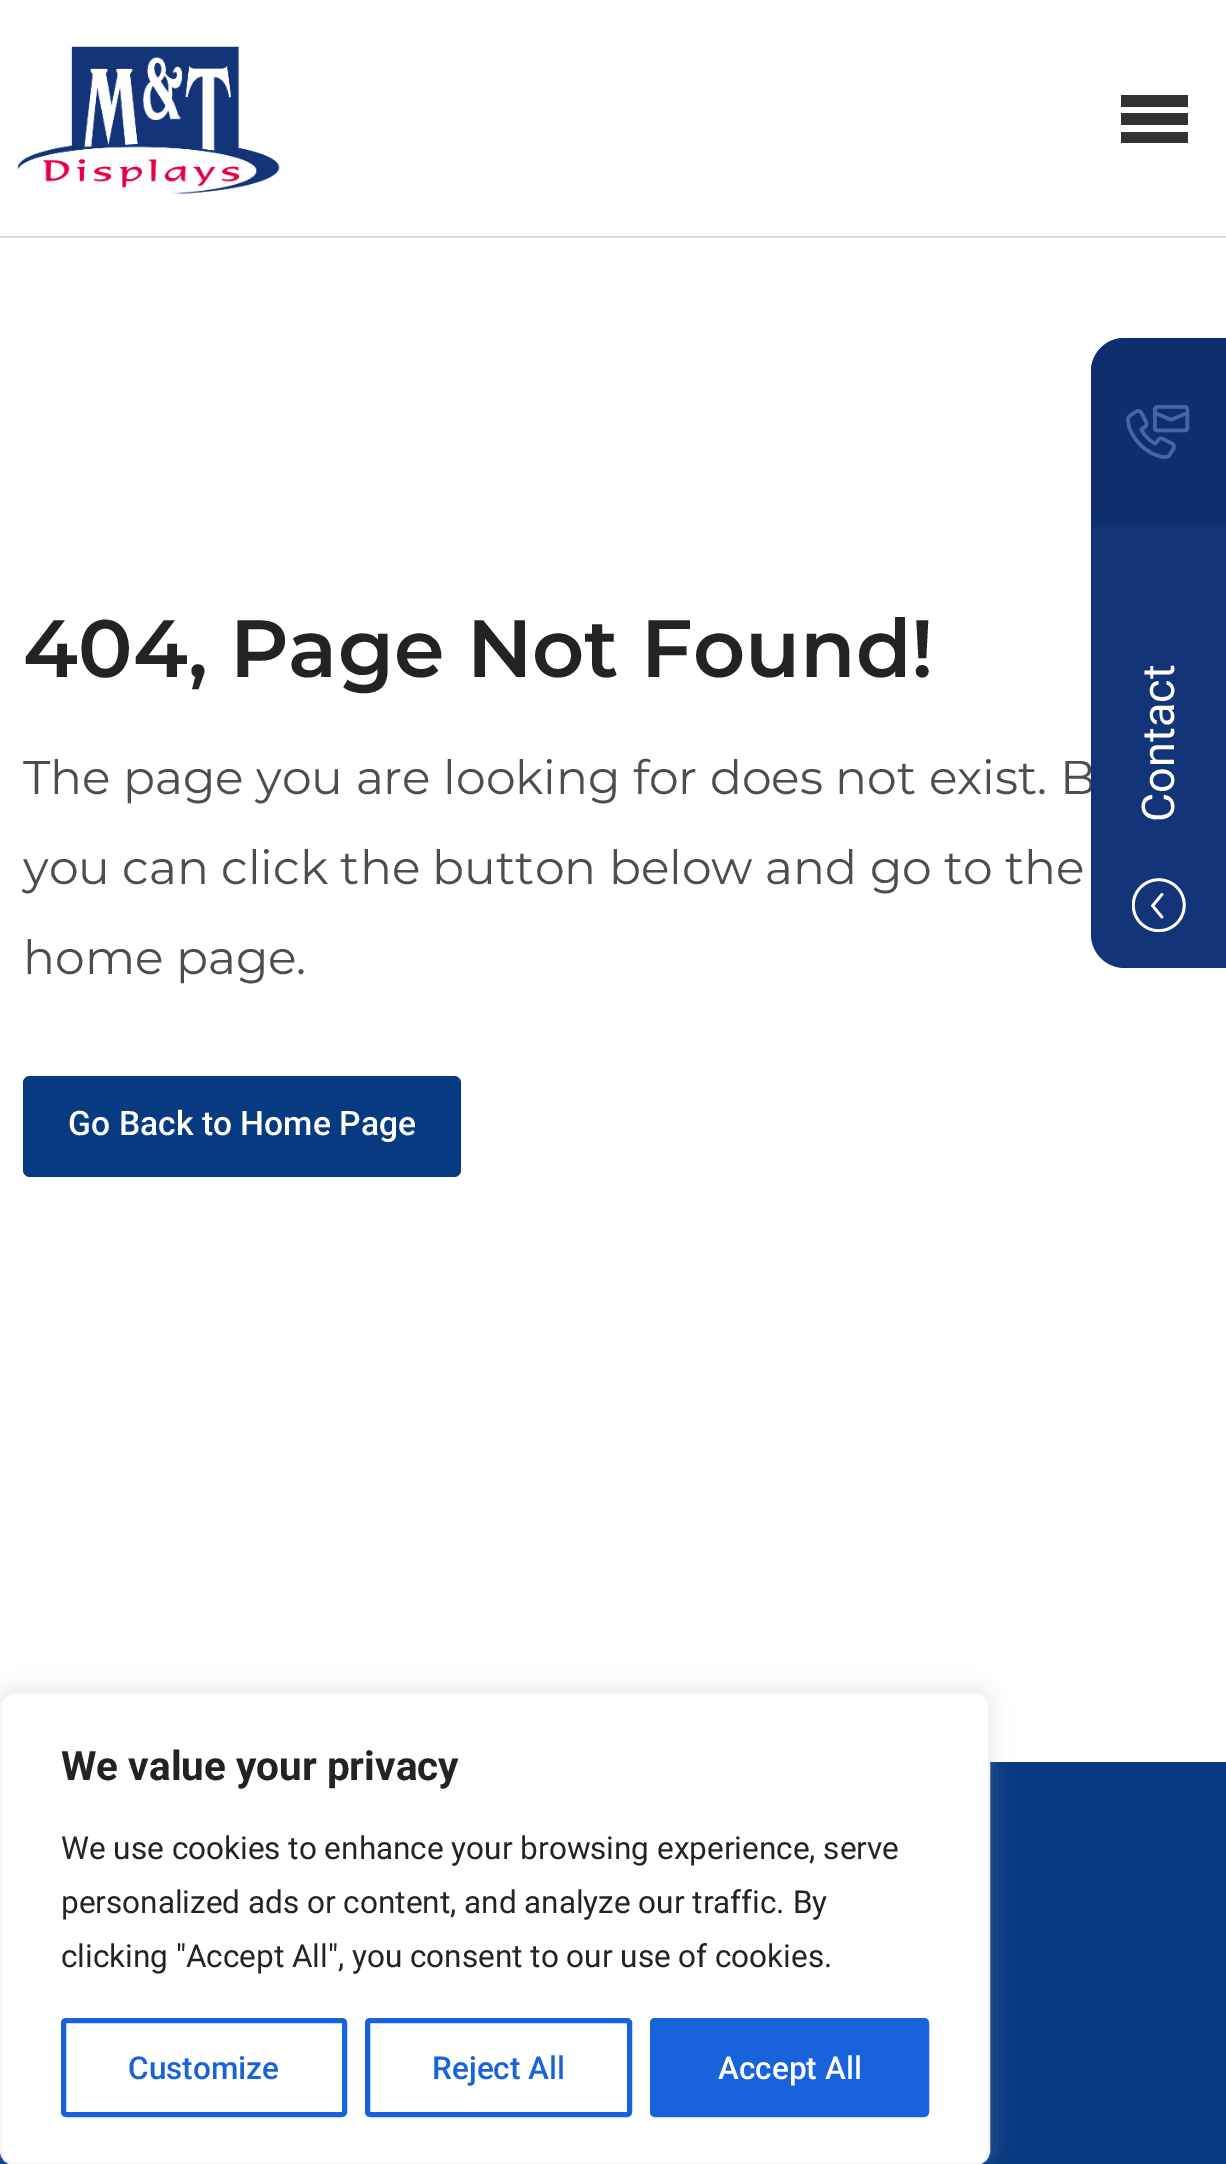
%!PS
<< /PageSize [1226 2164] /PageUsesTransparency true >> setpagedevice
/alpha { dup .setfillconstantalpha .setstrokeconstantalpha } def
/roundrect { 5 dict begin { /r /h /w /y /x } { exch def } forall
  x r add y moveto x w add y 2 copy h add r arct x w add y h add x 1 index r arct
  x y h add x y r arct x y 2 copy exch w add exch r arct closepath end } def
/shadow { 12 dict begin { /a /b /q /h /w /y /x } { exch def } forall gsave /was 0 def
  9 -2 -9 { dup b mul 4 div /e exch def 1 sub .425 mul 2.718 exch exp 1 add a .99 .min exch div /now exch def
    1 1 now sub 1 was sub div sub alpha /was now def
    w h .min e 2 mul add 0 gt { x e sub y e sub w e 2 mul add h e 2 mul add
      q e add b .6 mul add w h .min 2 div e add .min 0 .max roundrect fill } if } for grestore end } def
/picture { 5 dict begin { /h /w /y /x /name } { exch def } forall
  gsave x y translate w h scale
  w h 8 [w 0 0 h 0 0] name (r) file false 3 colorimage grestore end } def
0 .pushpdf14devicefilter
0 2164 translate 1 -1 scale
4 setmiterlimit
1 setgray
0 0 1226 2164 rectfill
0.867 setgray
0 236 1226 2 rectfill
(img1.rgb) 17 46 263 148 picture
0.2 setgray
1121 95 67 12 rectfill
1121 113 67 12 rectfill
1121 132 67 11 rectfill
/Montserrat-SemiBold [81 0 0 -81 0 0] selectfont
0.145 0.137 0.129 setrgbcolor
23 677 moveto (404, Page Not Found!) show
/Montserrat-Regular [47.25 0 0 -47.25 0 0] selectfont
0.302 setgray
23 794 moveto (The page you are looking for does not exist. B) show
23 884 moveto (you can click the button below and go to the) show
23 974 moveto (home page.) show
0.031 0.227 0.51 setrgbcolor
23 1076 438 101 7 roundrect fill
/Roboto-Medium [33.75 0 0 -33.75 0 0] selectfont
1 setgray
68 1135 moveto (Go Back to Home Page) show
0.075 0.204 0.471 setrgbcolor
newpath 1125 338 moveto 1226 338 lineto 1226 968 lineto 1125 968 lineto 1106 968 1091 953 1091 934 curveto 1091 372 lineto 1091 353 1106 338 1125 338 curveto closepath fill
0.059 0.18 0.427 setrgbcolor
newpath 1125 338 moveto 1226 338 lineto 1226 527 lineto 1091 527 lineto 1091 372 lineto 1091 353 1106 338 1125 338 curveto closepath fill
(img2.rgb) 1126 405 64 54 picture
/Roboto-Regular [45 0 0 -45 0 0] selectfont
1 setgray
gsave 1174 822 translate -90 rotate 0 0 moveto (Contact) show grestore
(img3.rgb) 1132 878 54 54 picture
0.031 0.227 0.51 setrgbcolor
0 1762 1226 402 rectfill
0.675 0.671 0.671 setrgbcolor
0 1690 990 472 14 11 0.3 shadow
1 setgray
1 1693 988 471 13 roundrect gsave fill grestore
0.957 setgray
2 setlinewidth
stroke
/Roboto-Bold [40.5 0 0 -40.5 0 0] selectfont
0.145 0.137 0.129 setrgbcolor
61 1780 moveto (We value your privacy) show
/Roboto-Regular [31.5 0 0 -31.5 0 0] selectfont
61 1859 moveto (We use cookies to enhance your browsing experience, serve) show
61 1913 moveto (personalized ads or content, and analyze our traffic. By) show
61 1967 moveto (clicking "Accept All", you consent to our use of cookies.) show
0.094 0.388 0.863 setrgbcolor
5 setlinewidth
63.5 2020.5 281 94 2.5 roundrect stroke
/Roboto-Medium [31.5 0 0 -31.5 0 0] selectfont
128 2079 moveto (Customize) show
367.5 2020.5 262 94 2.5 roundrect stroke
432 2079 moveto (Reject All) show
652.5 2020.5 274 94 2.5 roundrect gsave fill grestore
stroke
1 setgray
718 2079 moveto (Accept All) show
.poppdf14devicefilter showpage
